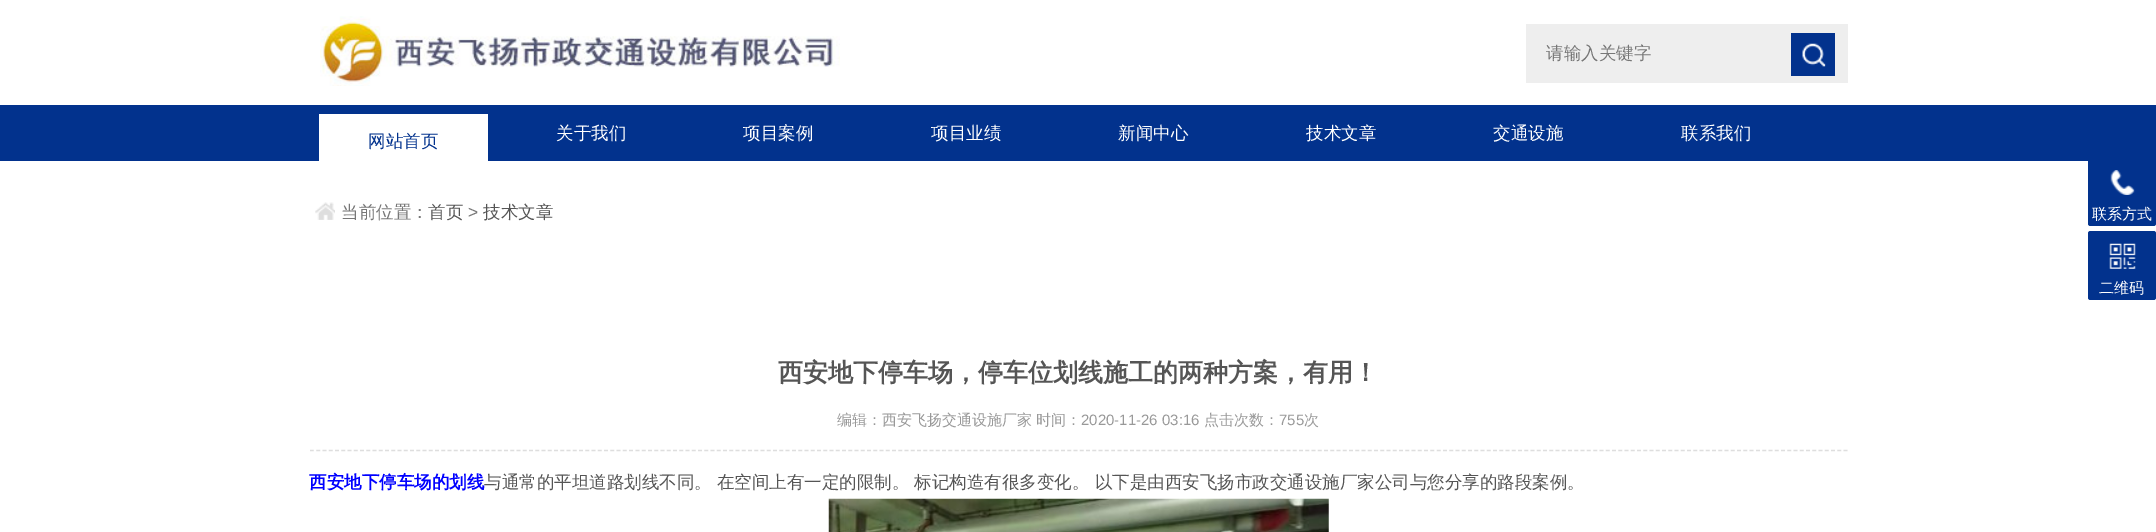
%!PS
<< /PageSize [2156 532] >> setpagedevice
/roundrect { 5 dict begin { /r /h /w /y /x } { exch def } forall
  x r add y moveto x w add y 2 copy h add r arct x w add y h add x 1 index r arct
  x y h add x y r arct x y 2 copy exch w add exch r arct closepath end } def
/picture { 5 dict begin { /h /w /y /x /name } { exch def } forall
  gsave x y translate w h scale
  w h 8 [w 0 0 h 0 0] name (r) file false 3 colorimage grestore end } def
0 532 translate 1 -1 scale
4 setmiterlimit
1 setgray
0 0 2156 532 rectfill
(img1.rgb) 320 16 520 70 picture
0.933 setgray
1526 24 322 59 rectfill
/WenQuanYiZenHei-Medium [17.5 0 0 -17.5 0 0] selectfont
0.467 setgray
1546 59 moveto (请输入关键字) show
0.008 0.196 0.553 setrgbcolor
1791 33 44 43 rectfill
(img2.rgb) 1802 43 24 24 picture
0 105 2156 56 rectfill
1 setgray
319 114 169 47 rectfill
0.008 0.196 0.553 setrgbcolor
368 147 moveto (网站首页) show
1 setgray
556 139 moveto (关于我们) show
743 139 moveto (项目案例) show
931 139 moveto (项目业绩) show
1118 139 moveto (新闻中心) show
1306 139 moveto (技术文章) show
1493 139 moveto (交通设施) show
1681 139 moveto (联系我们) show
(img3.rgb) 315 202 20 18 picture
0.467 setgray
341 218 moveto (当前位置：) show
0.333 setgray
428 218 moveto (首页) show
/LiberationSans-Regular [17.5 0 0 -17.5 0 0] selectfont
0.467 setgray
468 218 moveto (>) show
/WenQuanYiZenHei-Medium [17.5 0 0 -17.5 0 0] selectfont
0.333 setgray
483 218 moveto (技术文章) show
/WenQuanYiZenHei-Bold [25 0 0 -25 0 0] selectfont
778 381 moveto (西安地下停车场，停车位划线施工的两种方案，有用！) show
0.871 setgray
1.2 setlinewidth
[3.75 2.51] 0 setdash
newpath 310 450.5 moveto 1847.5 450.5 lineto stroke
/WenQuanYiZenHei-Medium [15 0 0 -15 0 0] selectfont
0.6 setgray
837 425 moveto (编辑：西安飞扬交通设施厂家) show
1036 425 moveto (时间：) show
/LiberationSans-Regular [15 0 0 -15 0 0] selectfont
1081 425 moveto (2020-11-26 03:16) show
/WenQuanYiZenHei-Medium [15 0 0 -15 0 0] selectfont
1204 425 moveto (点击次数：) show
/LiberationSans-Regular [15 0 0 -15 0 0] selectfont
1279 425 moveto (755) show
/WenQuanYiZenHei-Medium [15 0 0 -15 0 0] selectfont
1304 425 moveto (次) show
/WenQuanYiZenHei-Bold [17.5 0 0 -17.5 0 0] selectfont
0 0 1 setrgbcolor
309 488 moveto (西安地下停车场的划线) show
/WenQuanYiZenHei-Medium [17.5 0 0 -17.5 0 0] selectfont
0.333 setgray
484 488 moveto (与通常的平坦道路划线不同。 在空间上有一定的限制。 标记构造有很多变化。 以下是由西安飞扬市政交通设施厂家公司与您分享的路段案例。) show
(img4.rgb) 828 498 501 34 picture
0.008 0.196 0.553 setrgbcolor
2088 158 68 68 2.5 roundrect fill
(img5.rgb) 2110 170 25 25 picture
/WenQuanYiZenHei-Medium [15 0 0 -15 0 0] selectfont
1 setgray
2092 219 moveto (联系方式) show
0.008 0.196 0.553 setrgbcolor
2088 231 68 69 2.5 roundrect fill
(img6.rgb) 2109 243 27 26 picture
1 setgray
2099 293 moveto (二维码) show
showpage
